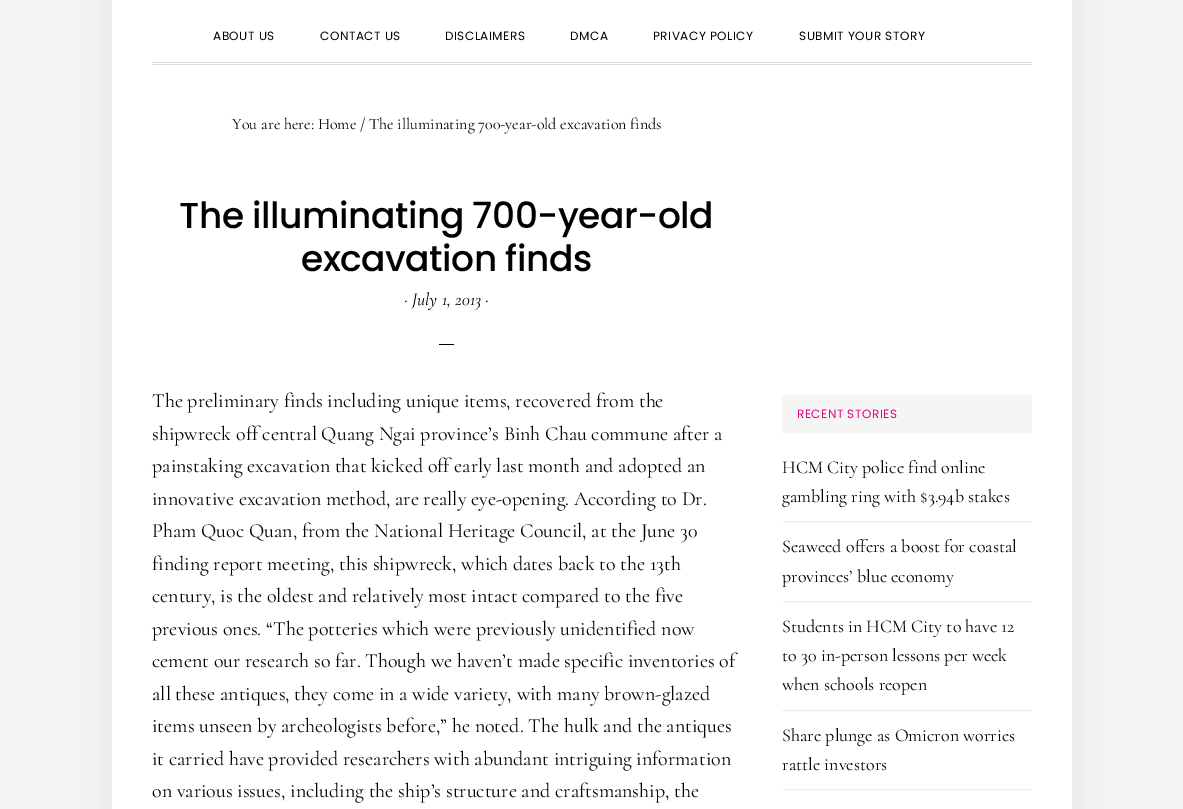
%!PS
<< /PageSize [1183 809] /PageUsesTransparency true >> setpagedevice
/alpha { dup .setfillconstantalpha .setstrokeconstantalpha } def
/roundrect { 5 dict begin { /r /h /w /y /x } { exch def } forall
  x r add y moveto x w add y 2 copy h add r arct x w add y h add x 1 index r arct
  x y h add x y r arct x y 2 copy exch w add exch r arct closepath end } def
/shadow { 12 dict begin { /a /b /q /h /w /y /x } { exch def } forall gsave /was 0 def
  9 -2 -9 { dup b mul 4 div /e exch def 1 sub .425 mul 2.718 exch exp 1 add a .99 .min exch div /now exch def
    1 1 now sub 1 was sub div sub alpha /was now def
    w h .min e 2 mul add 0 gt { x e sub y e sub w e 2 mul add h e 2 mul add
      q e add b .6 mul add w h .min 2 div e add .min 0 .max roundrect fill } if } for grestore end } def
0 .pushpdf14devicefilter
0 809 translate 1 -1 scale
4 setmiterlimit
0.961 setgray
0 0 1183 809 rectfill
0 setgray
112 -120 960 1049 0 40 0.05 shadow
1 setgray
112 0 960 809 rectfill
0.867 setgray
152 62 880 1 rectfill
152 64 880 1 rectfill
/Poppins-Regular [12 0 0 -12 0 0] selectfont
0 setgray
213 40 moveto 0.5 0 (ABOUT US) ashow
320 40 moveto 0.5 0 (CONTACT US) ashow
445 40 moveto 0.5 0 (DISCLAIMERS) ashow
570 40 moveto 0.5 0 (DMCA) ashow
653 40 moveto 0.5 0 (PRIVACY POLICY) ashow
799 40 moveto 0.5 0 (SUBMIT YOUR STORY) ashow
/Cormorant-Regular [16 0 0 -16 0 0] selectfont
232 129 moveto (You are here: Home / The illuminating 700-year-old excavation finds) show
/Poppins-Medium [36 0 0 -36 0 0] selectfont
179 228 moveto -0.5 0 (The illuminating 700-year-old) ashow
301 271 moveto -0.5 0 (excavation finds) ashow
/Cormorant-Italic [18 0 0 -18 0 0] selectfont
404 305 moveto (· July 1, 2013 ·) show
439 344 15 1 rectfill
/Cormorant-Regular [20 0 0 -20 0 0] selectfont
152 407 moveto (The preliminary finds including unique items, recovered from the) show
152 440 moveto (shipwreck off central Quang Ngai province’s Binh Chau commune after a) show
152 472 moveto (painstaking excavation that kicked off early last month and adopted an) show
152 505 moveto (innovative excavation method, are really eye-opening. According to Dr.) show
152 537 moveto (Pham Quoc Quan, from the National Heritage Council, at the June 30) show
152 570 moveto (finding report meeting, this shipwreck, which dates back to the 13th) show
152 602 moveto (century, is the oldest and relatively most intact compared to the five) show
152 635 moveto (previous ones. “The potteries which were previously unidentified now) show
152 667 moveto (cement our research so far. Though we haven’t made specific inventories of) show
152 700 moveto (all these antiques, they come in a wide variety, with many brown-glazed) show
152 732 moveto (items unseen by archeologists before,” he noted. The hulk and the antiques) show
152 765 moveto (it carried have provided researchers with abundant intriguing information) show
152 797 moveto (on various issues, including the ship’s structure and craftsmanship, the) show
0.961 setgray
782 395 250 38 rectfill
/Poppins-Regular [12 0 0 -12 0 0] selectfont
0.851 0.012 0.498 setrgbcolor
797 418 moveto 0.5 0 (RECENT STORIES) ashow
0.867 setgray
[1 1] 0 setdash
newpath 782 521.5 moveto 1032 521.5 lineto stroke
/Cormorant-Regular [18 0 0 -18 0 0] selectfont
0 setgray
782 473 moveto (HCM City police find online) show
782 502 moveto (gambling ring with $3.94b stakes) show
0.867 setgray
newpath 782 601.5 moveto 1032 601.5 lineto stroke
0 setgray
782 552 moveto (Seaweed offers a boost for coastal) show
782 582 moveto (provinces’ blue economy) show
0.867 setgray
newpath 782 710.5 moveto 1032 710.5 lineto stroke
0 setgray
782 632 moveto (Students in HCM City to have 12) show
782 661 moveto (to 30 in-person lessons per week) show
782 690 moveto (when schools reopen) show
0.867 setgray
newpath 782 789.5 moveto 1032 789.5 lineto stroke
0 setgray
782 741 moveto (Share plunge as Omicron worries) show
782 770 moveto (rattle investors) show
.poppdf14devicefilter showpage
